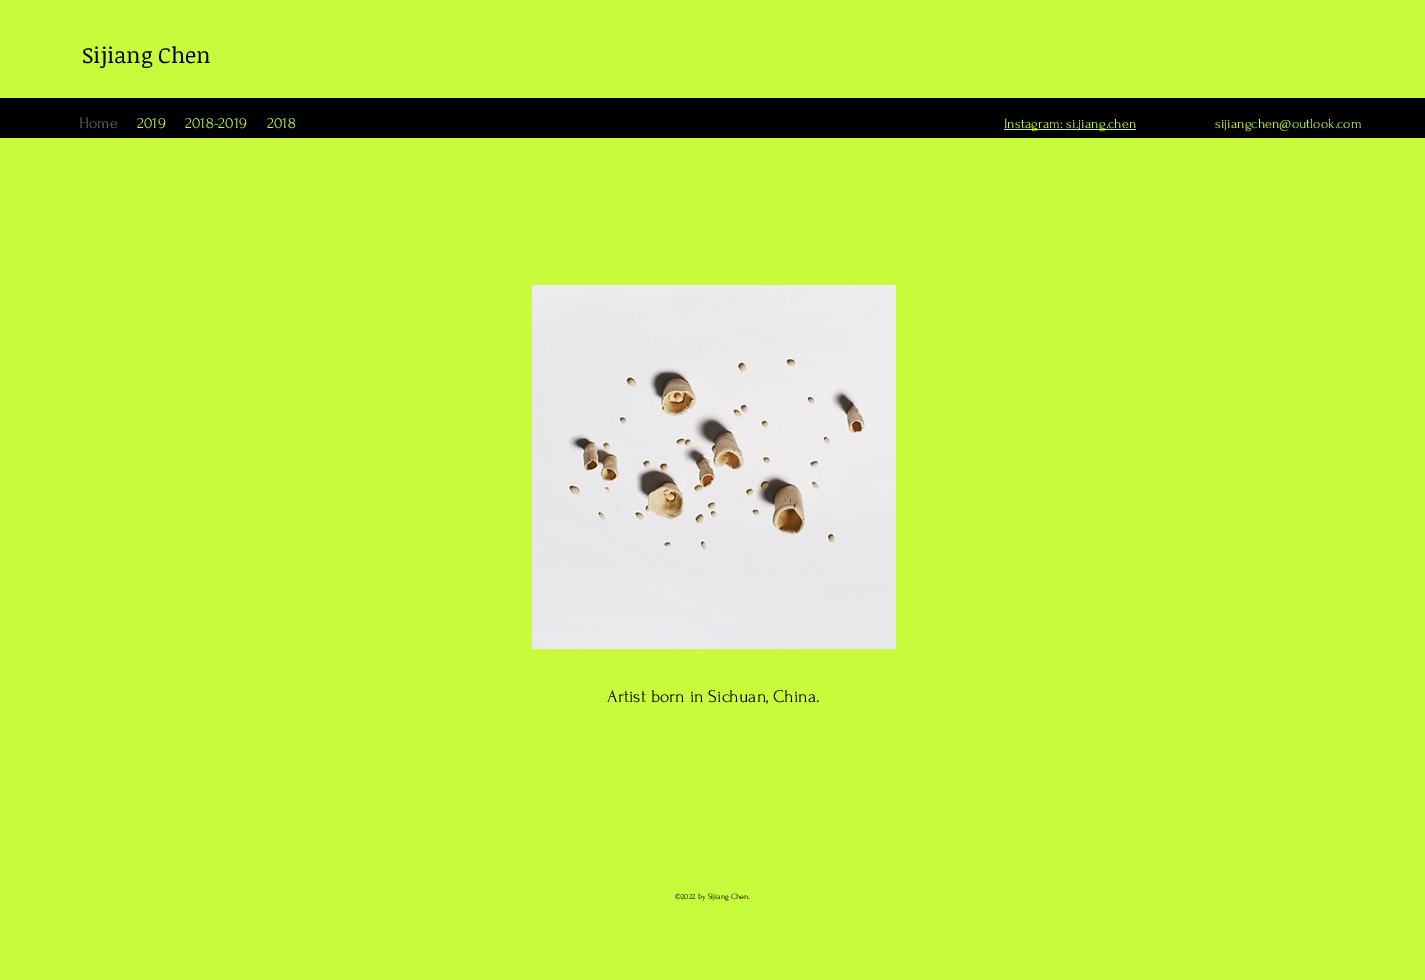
%!PS
<< /PageSize [1425 980] >> setpagedevice
/picture { 5 dict begin { /h /w /y /x /name } { exch def } forall
  gsave x y translate w h scale
  w h 8 [w 0 0 h 0 0] name (r) file false 3 colorimage grestore end } def
0 980 translate 1 -1 scale
4 setmiterlimit
0.784 0.984 0.231 setrgbcolor
0 0 1425 980 rectfill
/NoticiaText-Regular [22 0 0 -22 0 0] selectfont
0 setgray
82 63 moveto (Sijiang Chen) show
0 98 1425 40 rectfill
/Forum-Regular [16 0 0 -16 0 0] selectfont
0.4 0.404 0.4 setrgbcolor
79 128 moveto (Home) show
0.784 0.984 0.231 setrgbcolor
137 128 moveto (2019) show
185 128 moveto (2018-2019) show
267 128 moveto (2018) show
1004 129 132 1 rectfill
/Forum-Regular [14 0 0 -14 0 0] selectfont
1004 128 moveto (Instagram: si.jiang.chen) show
1215 128 moveto (sijiangchen@outlook.com) show
(img1.rgb) 532 285 364 364 picture
/Forum-Regular [18 0 0 -18 0 0] selectfont
0 setgray
607 702 moveto (Artist born in Sichuan, China.) show
/Forum-Regular [8 0 0 -8 0 0] selectfont
675 899 moveto (©2022 by Sijiang Chen.) show
showpage
